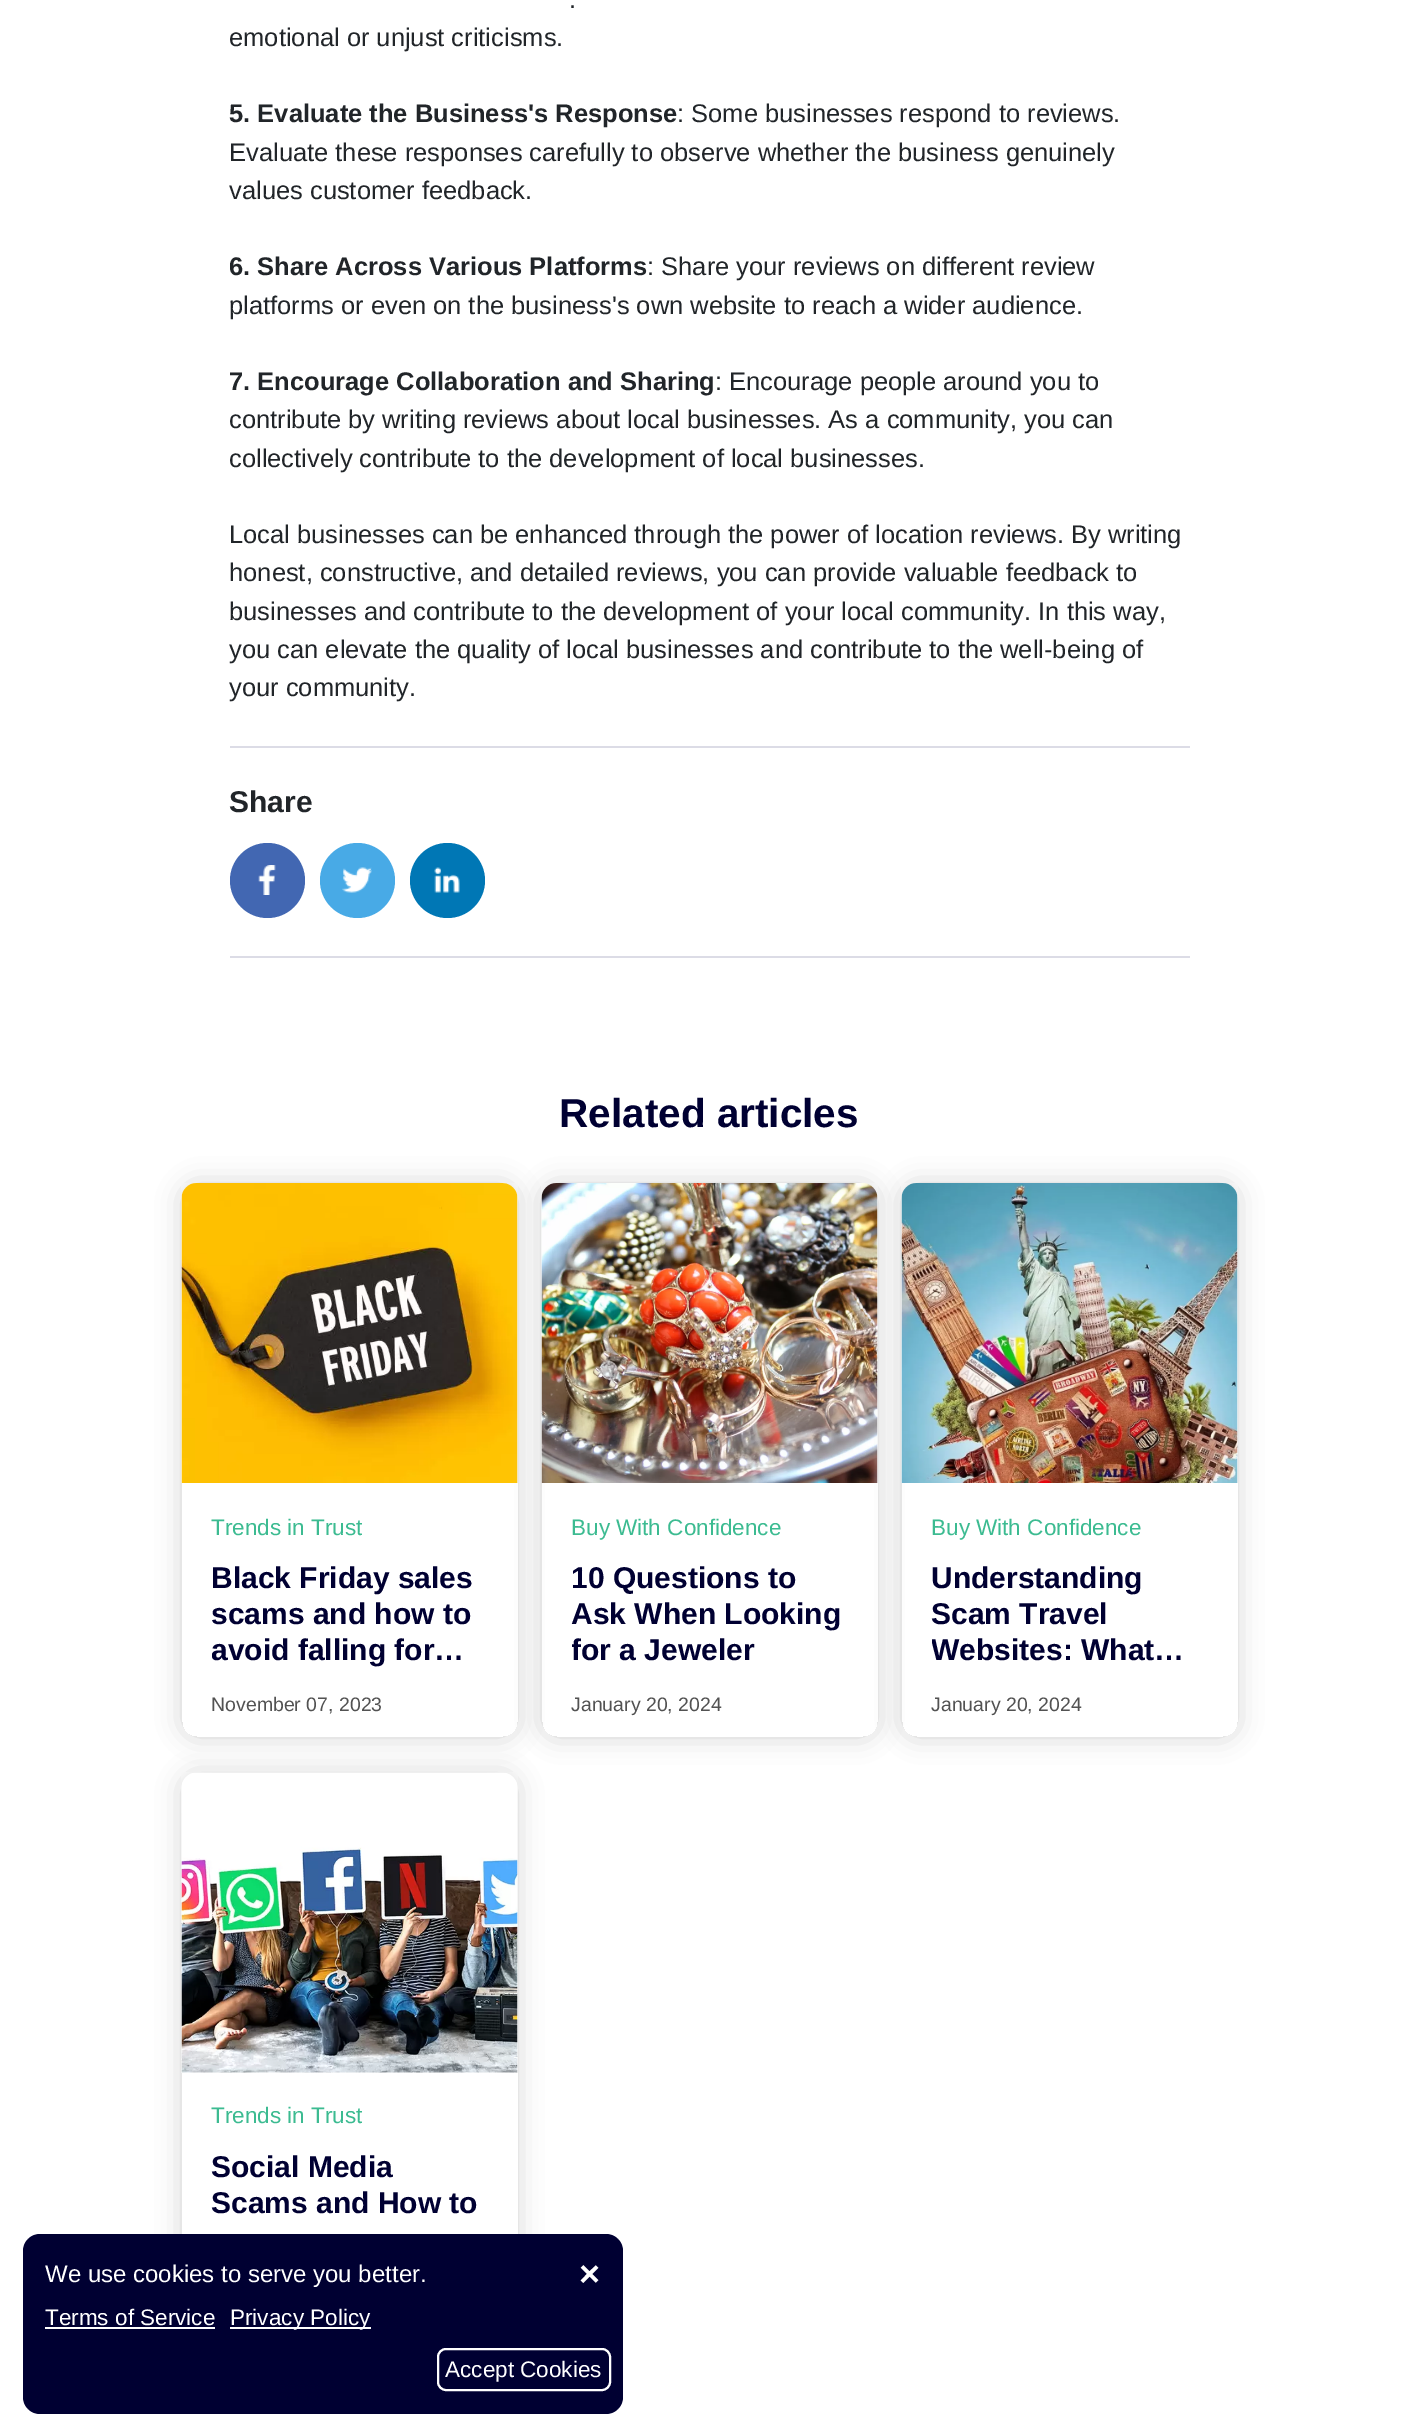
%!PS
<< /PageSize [1417 2436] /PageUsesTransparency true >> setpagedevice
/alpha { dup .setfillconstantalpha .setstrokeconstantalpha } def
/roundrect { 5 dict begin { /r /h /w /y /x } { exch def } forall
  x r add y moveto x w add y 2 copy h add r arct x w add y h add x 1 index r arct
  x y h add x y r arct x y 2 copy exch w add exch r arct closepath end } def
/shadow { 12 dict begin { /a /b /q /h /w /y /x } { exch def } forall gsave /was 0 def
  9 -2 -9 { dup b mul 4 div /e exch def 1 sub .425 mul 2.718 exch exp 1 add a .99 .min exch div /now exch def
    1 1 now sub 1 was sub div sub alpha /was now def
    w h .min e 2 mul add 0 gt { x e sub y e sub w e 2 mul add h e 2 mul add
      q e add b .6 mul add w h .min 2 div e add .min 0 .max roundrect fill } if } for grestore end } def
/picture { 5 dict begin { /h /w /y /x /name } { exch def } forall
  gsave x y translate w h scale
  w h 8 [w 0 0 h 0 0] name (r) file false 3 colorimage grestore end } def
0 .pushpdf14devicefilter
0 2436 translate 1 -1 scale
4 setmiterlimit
1 setgray
0 0 1417 2436 rectfill
/LiberationSans-Regular [25.5 0 0 -25.5 0 0] selectfont
0.129 0.145 0.161 setrgbcolor
569 8 moveto (.) show
229 46 moveto (emotional or unjust criticisms.) show
/LiberationSans-Bold [25.5 0 0 -25.5 0 0] selectfont
229 122 moveto (5. Evaluate the Business's Response) show
/LiberationSans-Regular [25.5 0 0 -25.5 0 0] selectfont
677 122 moveto (: Some businesses respond to reviews.) show
229 161 moveto (Evaluate these responses carefully to observe whether the business genuinely) show
229 199 moveto (values customer feedback.) show
/LiberationSans-Bold [25.5 0 0 -25.5 0 0] selectfont
229 275 moveto (6. Share Across Various Platforms) show
/LiberationSans-Regular [25.5 0 0 -25.5 0 0] selectfont
647 275 moveto (: Share your reviews on different review) show
229 314 moveto (platforms or even on the business's own website to reach a wider audience.) show
/LiberationSans-Bold [25.5 0 0 -25.5 0 0] selectfont
229 390 moveto (7. Encourage Collaboration and Sharing) show
/LiberationSans-Regular [25.5 0 0 -25.5 0 0] selectfont
715 390 moveto (: Encourage people around you to) show
229 428 moveto (contribute by writing reviews about local businesses. As a community, you can) show
229 467 moveto (collectively contribute to the development of local businesses.) show
229 543 moveto (Local businesses can be enhanced through the power of location reviews. By writing) show
229 581 moveto (honest, constructive, and detailed reviews, you can provide valuable feedback to) show
229 620 moveto (businesses and contribute to the development of your local community. In this way,) show
229 658 moveto (you can elevate the quality of local businesses and contribute to the well-being of) show
229 696 moveto (your community.) show
0.863 0.863 0.902 setrgbcolor
230 746 960 2 rectfill
230 956 960 2 rectfill
/LiberationSans-Bold [30 0 0 -30 0 0] selectfont
0.129 0.145 0.161 setrgbcolor
229 812 moveto (Share) show
0.259 0.404 0.698 setrgbcolor
newpath 267.5 880.5 37.5 0 360 arc closepath fill
(img1.rgb) 258 865 18 30 picture
0.282 0.667 0.902 setrgbcolor
newpath 357.5 880.5 37.5 0 360 arc closepath fill
(img2.rgb) 342 867 30 26 picture
0 0.467 0.71 setrgbcolor
newpath 447.5 880.5 37.5 0 360 arc closepath fill
(img3.rgb) 434 867 26 26 picture
/LiberationSans-Bold [40.5 0 0 -40.5 0 0] selectfont
0 0 0.196 setrgbcolor
559 1127 moveto (Related articles) show
gsave
newpath 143 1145 moveto 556 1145 lineto 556 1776 lineto 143 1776 lineto closepath 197 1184 moveto 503 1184 lineto 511.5 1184 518 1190.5 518 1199 curveto 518 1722 lineto 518 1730.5 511.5 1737 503 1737 curveto 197 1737 lineto 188.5 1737 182 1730.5 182 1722 curveto 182 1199 lineto 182 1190.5 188.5 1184 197 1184 curveto closepath eoclip newpath
0.804 setgray
183 1185 333 551 14 13 1 shadow
grestore
(img4.rgb) 181 1183 337 300 picture
/LiberationSans-Regular [22.5 0 0 -22.5 0 0] selectfont
0.235 0.733 0.569 setrgbcolor
211 1535 moveto (Trends in Trust) show
/LiberationSans-Bold [30 0 0 -30 0 0] selectfont
0 0 0.196 setrgbcolor
211 1588 moveto (Black Friday sales) show
211 1624 moveto (scams and how to) show
gsave
212 1560 276 111 rectclip
211 1660 moveto (avoid falling for…) show
grestore
/LiberationSans-Regular [19.5 0 0 -19.5 0 0] selectfont
0.322 setgray
211 1711 moveto (November 07, 2023) show
gsave
newpath 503 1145 moveto 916 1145 lineto 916 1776 lineto 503 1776 lineto closepath 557 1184 moveto 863 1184 lineto 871.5 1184 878 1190.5 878 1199 curveto 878 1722 lineto 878 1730.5 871.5 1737 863 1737 curveto 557 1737 lineto 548.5 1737 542 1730.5 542 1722 curveto 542 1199 lineto 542 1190.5 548.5 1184 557 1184 curveto closepath eoclip newpath
0.804 setgray
543 1185 333 551 14 13 1 shadow
grestore
(img5.rgb) 541 1183 337 300 picture
/LiberationSans-Regular [22.5 0 0 -22.5 0 0] selectfont
0.235 0.733 0.569 setrgbcolor
571 1535 moveto (Buy With Confidence) show
/LiberationSans-Bold [30 0 0 -30 0 0] selectfont
0 0 0.196 setrgbcolor
571 1588 moveto (10 Questions to) show
571 1624 moveto (Ask When Looking) show
gsave
572 1560 276 111 rectclip
571 1660 moveto (for a Jeweler) show
grestore
/LiberationSans-Regular [19.5 0 0 -19.5 0 0] selectfont
0.322 setgray
571 1711 moveto (January 20, 2024) show
gsave
newpath 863 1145 moveto 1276 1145 lineto 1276 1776 lineto 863 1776 lineto closepath 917 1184 moveto 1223 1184 lineto 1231.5 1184 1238 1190.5 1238 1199 curveto 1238 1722 lineto 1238 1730.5 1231.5 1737 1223 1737 curveto 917 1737 lineto 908.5 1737 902 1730.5 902 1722 curveto 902 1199 lineto 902 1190.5 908.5 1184 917 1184 curveto closepath eoclip newpath
0.804 setgray
903 1185 333 551 14 13 1 shadow
grestore
(img6.rgb) 901 1183 337 300 picture
/LiberationSans-Regular [22.5 0 0 -22.5 0 0] selectfont
0.235 0.733 0.569 setrgbcolor
931 1535 moveto (Buy With Confidence) show
/LiberationSans-Bold [30 0 0 -30 0 0] selectfont
0 0 0.196 setrgbcolor
931 1588 moveto (Understanding) show
931 1624 moveto (Scam Travel) show
gsave
932 1560 276 111 rectclip
931 1660 moveto (Websites: What…) show
grestore
/LiberationSans-Regular [19.5 0 0 -19.5 0 0] selectfont
0.322 setgray
931 1711 moveto (January 20, 2024) show
gsave
newpath 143 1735 moveto 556 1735 lineto 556 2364 lineto 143 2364 lineto closepath 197 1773 moveto 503 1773 lineto 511.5 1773 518 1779.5 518 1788 curveto 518 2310 lineto 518 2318.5 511.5 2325 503 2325 curveto 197 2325 lineto 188.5 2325 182 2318.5 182 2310 curveto 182 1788 lineto 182 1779.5 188.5 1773 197 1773 curveto closepath eoclip newpath
0.804 setgray
183 1775 333 549 14 13 1 shadow
grestore
(img7.rgb) 181 1772 337 301 picture
/LiberationSans-Regular [22.5 0 0 -22.5 0 0] selectfont
0.235 0.733 0.569 setrgbcolor
211 2123 moveto (Trends in Trust) show
/LiberationSans-Bold [30 0 0 -30 0 0] selectfont
0 0 0.196 setrgbcolor
211 2177 moveto (Social Media) show
211 2213 moveto (Scams and How to) show
23 2234 600 180 17 roundrect fill
/LiberationSans-Regular [24 0 0 -24 0 0] selectfont
1 setgray
45 2282 moveto (We use cookies to serve you better.) show
/LiberationSans-Bold [36 0 0 -36 0 0] selectfont
579 2286 moveto (×) show
/LiberationSans-Regular [22.5 0 0 -22.5 0 0] selectfont
45 2325 moveto (Terms of Service) show
45 2327 170 2 rectfill
230 2327 141 2 rectfill
230 2325 moveto (Privacy Policy) show
2 setlinewidth
438 2349 172 41 8 roundrect stroke
445 2377 moveto (Accept Cookies) show
.poppdf14devicefilter showpage
